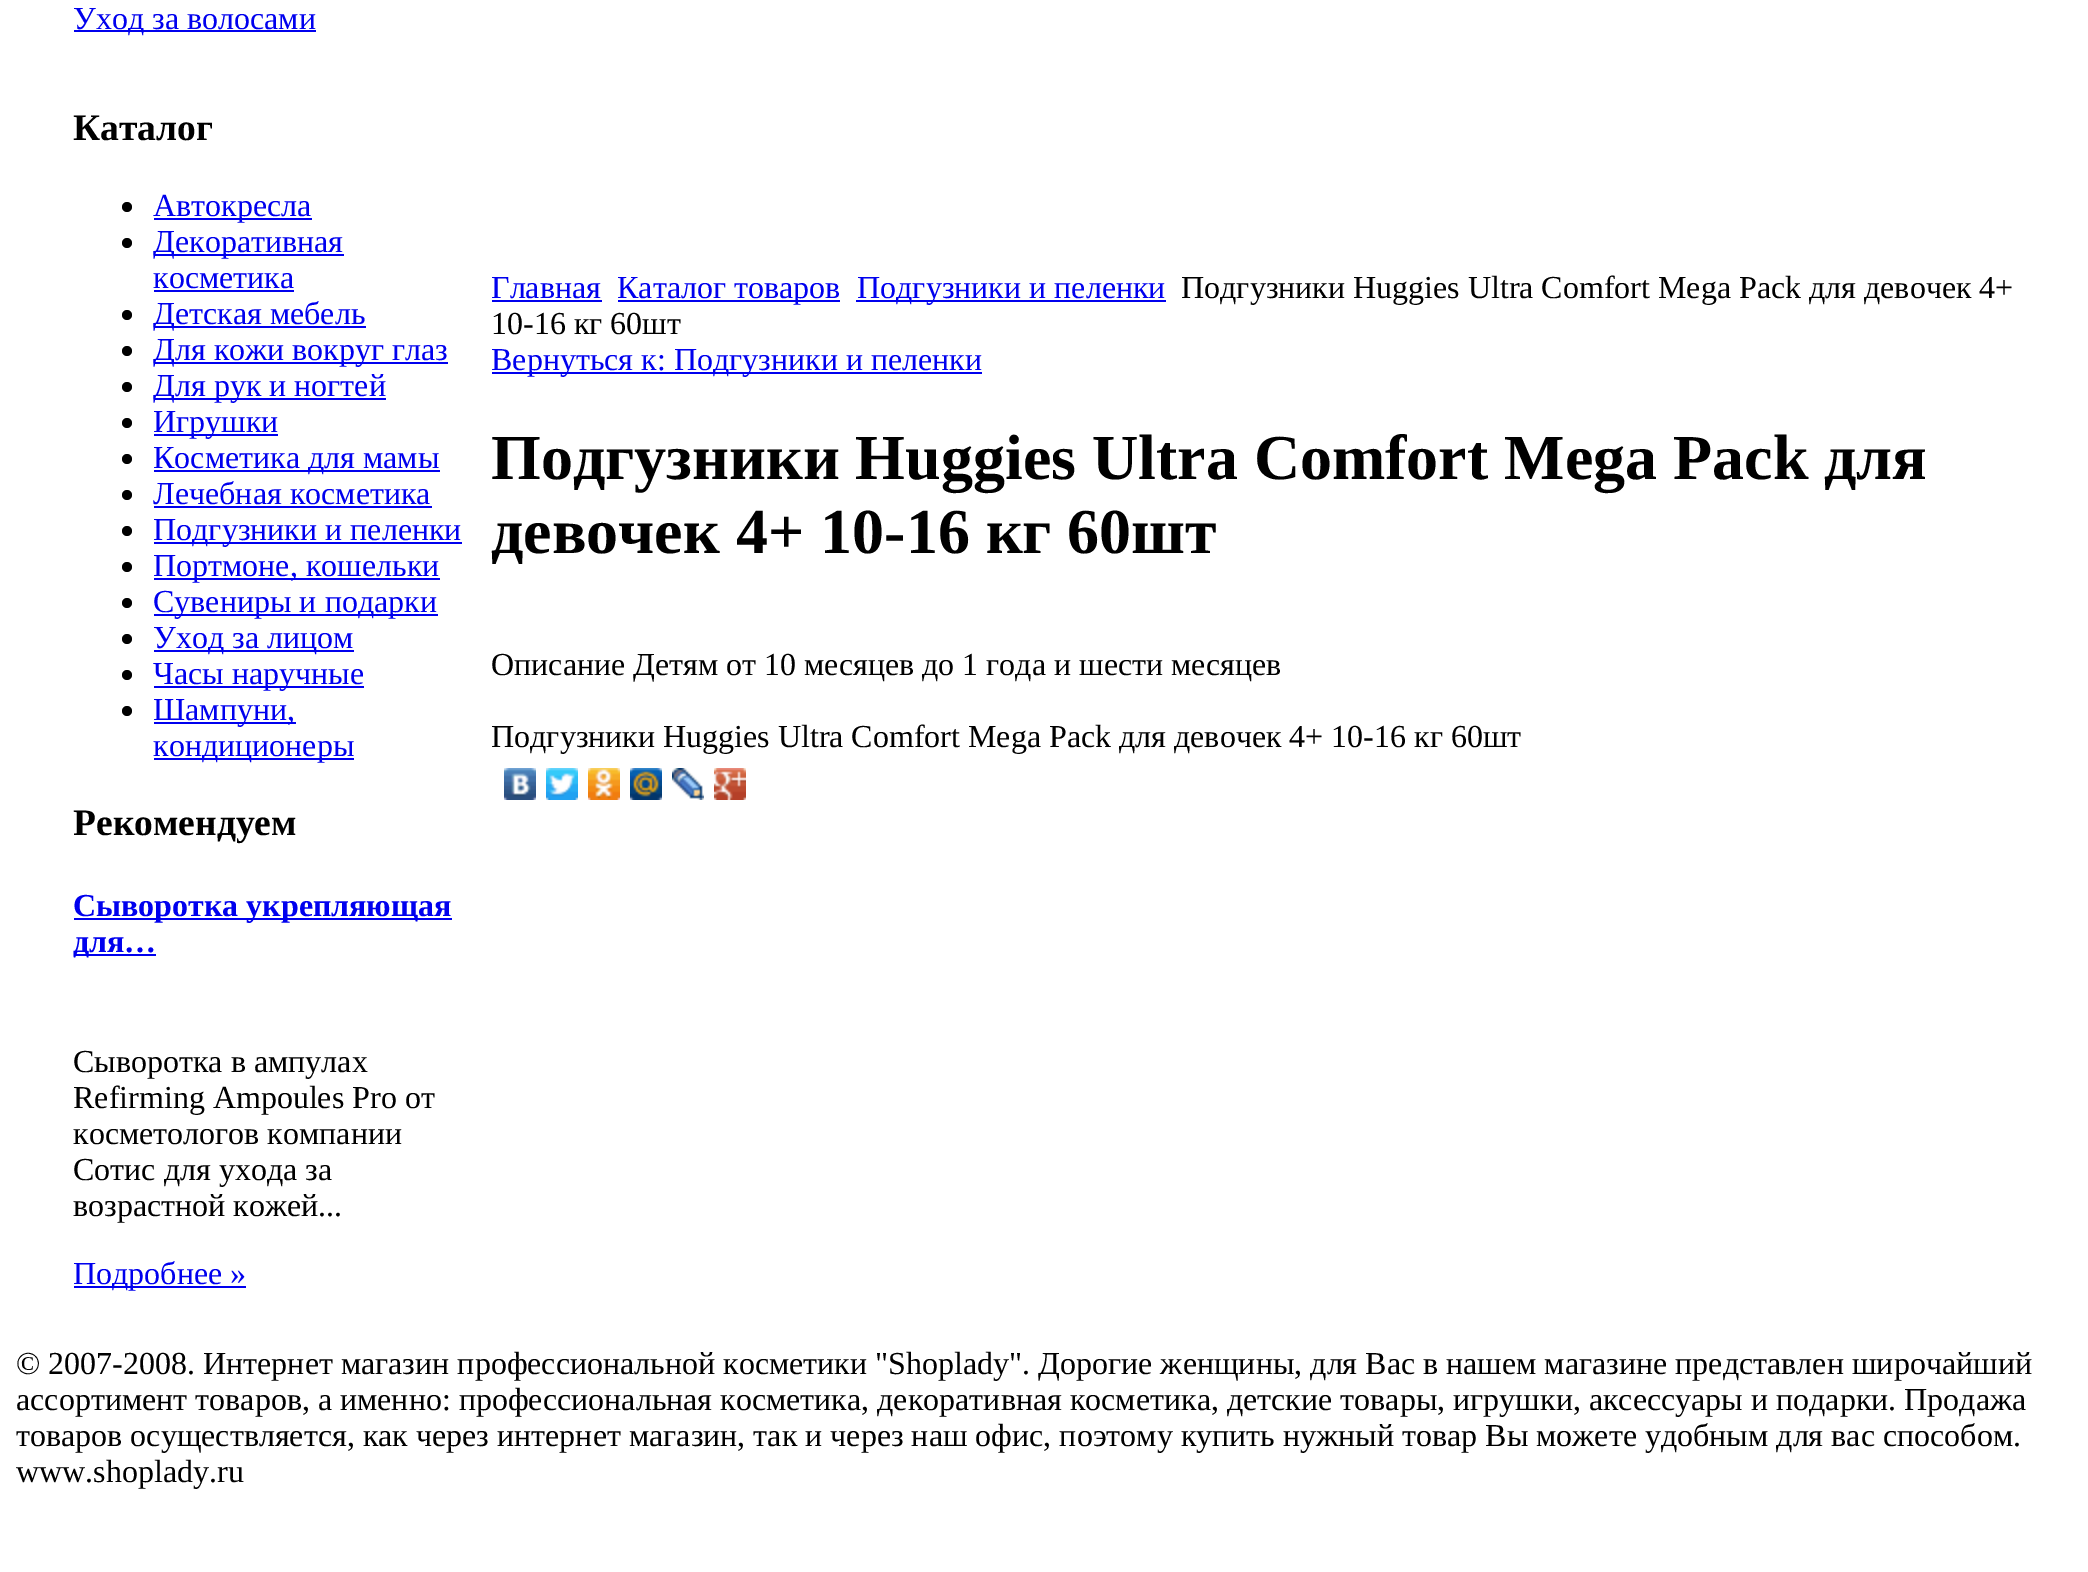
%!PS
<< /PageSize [2088 1572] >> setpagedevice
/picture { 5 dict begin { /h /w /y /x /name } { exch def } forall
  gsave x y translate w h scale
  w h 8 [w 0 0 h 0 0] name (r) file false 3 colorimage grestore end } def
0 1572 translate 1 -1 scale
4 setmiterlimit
1 setgray
0 0 2088 1572 rectfill
0 0 0.933 setrgbcolor
74 30 242 2 rectfill
/LiberationSerif-Regular [32 0 0 -32 0 0] selectfont
73 29 moveto (Уход за волосами) show
/LiberationSerif-Bold [37.5 0 0 -37.5 0 0] selectfont
0 setgray
73 140 moveto (Каталог) show
newpath 127 207 5 0 360 arc closepath fill
0 0 0.933 setrgbcolor
154 218 158 2 rectfill
/LiberationSerif-Regular [32 0 0 -32 0 0] selectfont
153 216 moveto (Автокресла) show
0 setgray
newpath 127 243 5 0 360 arc closepath fill
0 0 0.933 setrgbcolor
154 254 190 2 rectfill
153 252 moveto (Декоративная) show
153 288 moveto (косметика) show
154 290 140 2 rectfill
0 setgray
newpath 127 315 5 0 360 arc closepath fill
0 0 0.933 setrgbcolor
154 326 212 2 rectfill
153 324 moveto (Детская мебель) show
0 setgray
newpath 127 351 5 0 360 arc closepath fill
0 0 0.933 setrgbcolor
154 362 294 2 rectfill
153 360 moveto (Для кожи вокруг глаз) show
0 setgray
newpath 127 387 5 0 360 arc closepath fill
0 0 0.933 setrgbcolor
154 398 232 2 rectfill
153 396 moveto (Для рук и ногтей) show
0 setgray
newpath 127 423 5 0 360 arc closepath fill
0 0 0.933 setrgbcolor
154 434 124 2 rectfill
153 432 moveto (Игрушки) show
0 setgray
newpath 127 459 5 0 360 arc closepath fill
0 0 0.933 setrgbcolor
154 470 286 2 rectfill
153 468 moveto (Косметика для мамы) show
0 setgray
newpath 127 495 5 0 360 arc closepath fill
0 0 0.933 setrgbcolor
153 504 moveto (Лечебная косметика) show
154 506 278 2 rectfill
0 setgray
newpath 127 531 5 0 360 arc closepath fill
0 0 0.933 setrgbcolor
154 542 308 2 rectfill
153 540 moveto (Подгузники и пеленки) show
0 setgray
newpath 127 567 5 0 360 arc closepath fill
0 0 0.933 setrgbcolor
154 578 286 2 rectfill
153 576 moveto (Портмоне, кошельки) show
0 setgray
newpath 127 603 5 0 360 arc closepath fill
0 0 0.933 setrgbcolor
154 614 284 2 rectfill
153 612 moveto (Сувениры и подарки) show
0 setgray
newpath 127 639 5 0 360 arc closepath fill
0 0 0.933 setrgbcolor
154 650 200 2 rectfill
153 648 moveto (Уход за лицом) show
0 setgray
newpath 127 675 5 0 360 arc closepath fill
0 0 0.933 setrgbcolor
154 686 210 2 rectfill
153 684 moveto (Часы наручные) show
0 setgray
newpath 127 711 5 0 360 arc closepath fill
0 0 0.933 setrgbcolor
154 722 142 2 rectfill
153 720 moveto (Шампуни,) show
154 758 200 2 rectfill
153 756 moveto (кондиционеры) show
/LiberationSerif-Bold [37.5 0 0 -37.5 0 0] selectfont
0 setgray
73 835 moveto (Рекомендуем) show
0 0 0.933 setrgbcolor
74 918 378 2 rectfill
/LiberationSerif-Bold [32 0 0 -32 0 0] selectfont
73 916 moveto (Сыворотка укрепляющая) show
74 954 82 2 rectfill
73 952 moveto (для…) show
/LiberationSerif-Regular [32 0 0 -32 0 0] selectfont
0 setgray
73 1072 moveto (Сыворотка в ампулах) show
73 1108 moveto (Refirming Ampoules Pro от) show
73 1144 moveto (косметологов компании) show
73 1180 moveto (Сотис для ухода за) show
73 1216 moveto (возрастной кожей...) show
0 0 0.933 setrgbcolor
74 1286 172 2 rectfill
73 1284 moveto (Подробнее ») show
491 298 moveto (Главная) show
492 300 110 2 rectfill
618 300 222 2 rectfill
617 298 moveto (Каталог товаров) show
856 300 310 2 rectfill
857 298 moveto (Подгузники и пеленки) show
0 setgray
1181 298 moveto (Подгузники Huggies Ultra Comfort Mega Pack для девочек 4+) show
491 334 moveto (10-16 кг 60шт) show
0 0 0.933 setrgbcolor
492 372 490 2 rectfill
491 370 moveto (Вернуться к: Подгузники и пеленки) show
/LiberationSerif-Bold [64 0 0 -64 0 0] selectfont
0 setgray
491 479 moveto (Подгузники Huggies Ultra Comfort Mega Pack для) show
491 553 moveto (девочек 4+ 10-16 кг 60шт) show
/LiberationSerif-Regular [32 0 0 -32 0 0] selectfont
491 675 moveto (Описание Детям от 10 месяцев до 1 года и шести месяцев) show
491 747 moveto (Подгузники Huggies Ultra Comfort Mega Pack для девочек 4+ 10-16 кг 60шт) show
(img1.rgb) 504 768 32 32 picture
(img2.rgb) 546 768 32 32 picture
(img3.rgb) 588 768 32 32 picture
(img4.rgb) 630 768 32 32 picture
(img5.rgb) 672 768 32 32 picture
(img6.rgb) 714 768 32 32 picture
16 1374 moveto (© 2007-2008. Интернет магазин профессиональной косметики "Shoplady". Дорогие женщины, для Вас в нашем магазине представлен широчайший) show
16 1410 moveto (ассортимент товаров, а именно: профессиональная косметика, декоративная косметика, детские товары, игрушки, аксессуары и подарки. Продажа) show
16 1446 moveto (товаров осуществляется, как через интернет магазин, так и через наш офис, поэтому купить нужный товар Вы можете удобным для вас способом.) show
16 1482 moveto (www.shoplady.ru) show
showpage
